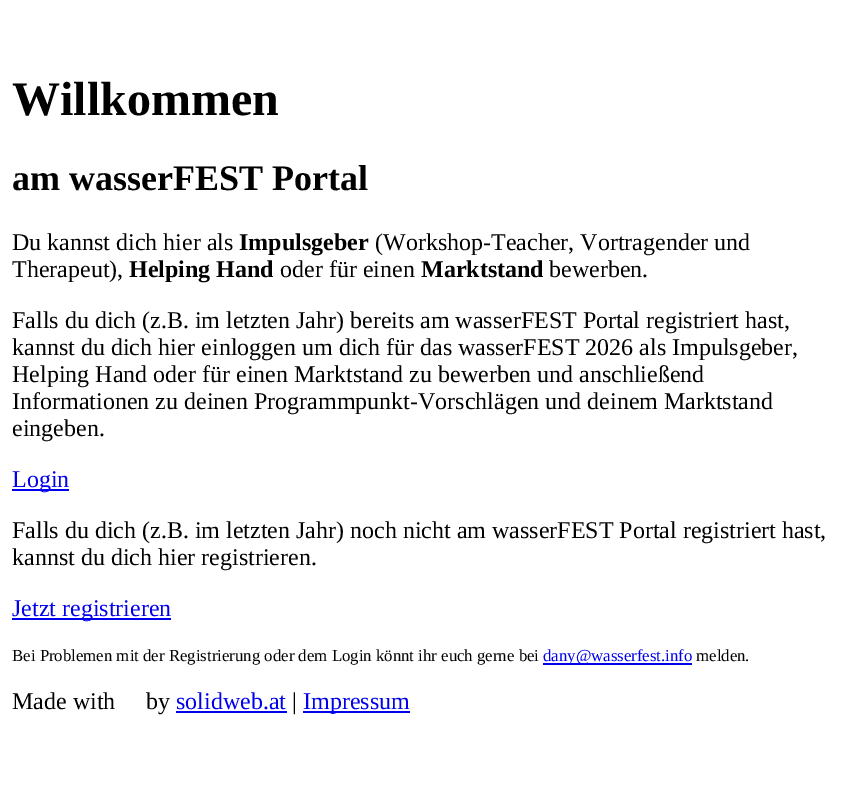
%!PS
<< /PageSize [859 802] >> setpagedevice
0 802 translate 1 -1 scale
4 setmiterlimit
1 setgray
0 0 859 802 rectfill
/LiberationSerif-Bold [48 0 0 -48 0 0] selectfont
0 setgray
12 115 moveto (Willkommen) show
/LiberationSerif-Bold [36 0 0 -36 0 0] selectfont
12 190 moveto (am wasserFEST Portal) show
/LiberationSerif-Regular [24 0 0 -24 0 0] selectfont
12 250 moveto (Du kannst dich hier als) show
/LiberationSerif-Bold [24 0 0 -24 0 0] selectfont
239 250 moveto (Impulsgeber) show
/LiberationSerif-Regular [24 0 0 -24 0 0] selectfont
375 250 moveto (\(Workshop-Teacher, Vortragender und) show
12 277 moveto (Therapeut\),) show
/LiberationSerif-Bold [24 0 0 -24 0 0] selectfont
129 277 moveto (Helping Hand) show
/LiberationSerif-Regular [24 0 0 -24 0 0] selectfont
280 277 moveto (oder für einen) show
/LiberationSerif-Bold [24 0 0 -24 0 0] selectfont
421 277 moveto (Marktstand) show
/LiberationSerif-Regular [24 0 0 -24 0 0] selectfont
549 277 moveto (bewerben.) show
12 328 moveto (Falls du dich \(z.B. im letzten Jahr\) bereits am wasserFEST Portal registriert hast,) show
12 355 moveto (kannst du dich hier einloggen um dich für das wasserFEST 2026 als Impulsgeber,) show
12 382 moveto (Helping Hand oder für einen Marktstand zu bewerben und anschließend) show
12 409 moveto (Informationen zu deinen Programmpunkt-Vorschlägen und deinem Marktstand) show
12 436 moveto (eingeben.) show
0 0 0.933 setrgbcolor
12 489 57 2 rectfill
12 487 moveto (Login) show
0 setgray
12 538 moveto (Falls du dich \(z.B. im letzten Jahr\) noch nicht am wasserFEST Portal registriert hast,) show
12 565 moveto (kannst du dich hier registrieren.) show
0 0 0.933 setrgbcolor
12 618 159 2 rectfill
12 616 moveto (Jetzt registrieren) show
/LiberationSerif-Regular [16.8 0 0 -16.8 0 0] selectfont
0 setgray
12 661 moveto (Bei Problemen mit der Registrierung oder dem Login könnt ihr euch gerne bei) show
0 0 0.933 setrgbcolor
543 663 149 2 rectfill
543 661 moveto (dany@wasserfest.info) show
0 setgray
696 661 moveto (melden.) show
/LiberationSerif-Regular [24 0 0 -24 0 0] selectfont
12 709 moveto (Made with) show
146 709 moveto (by) show
0 0 0.933 setrgbcolor
176 709 moveto (solidweb.at) show
176 711 111 2 rectfill
0 setgray
292 709 moveto (|) show
0 0 0.933 setrgbcolor
303 711 107 2 rectfill
303 709 moveto (Impressum) show
showpage
